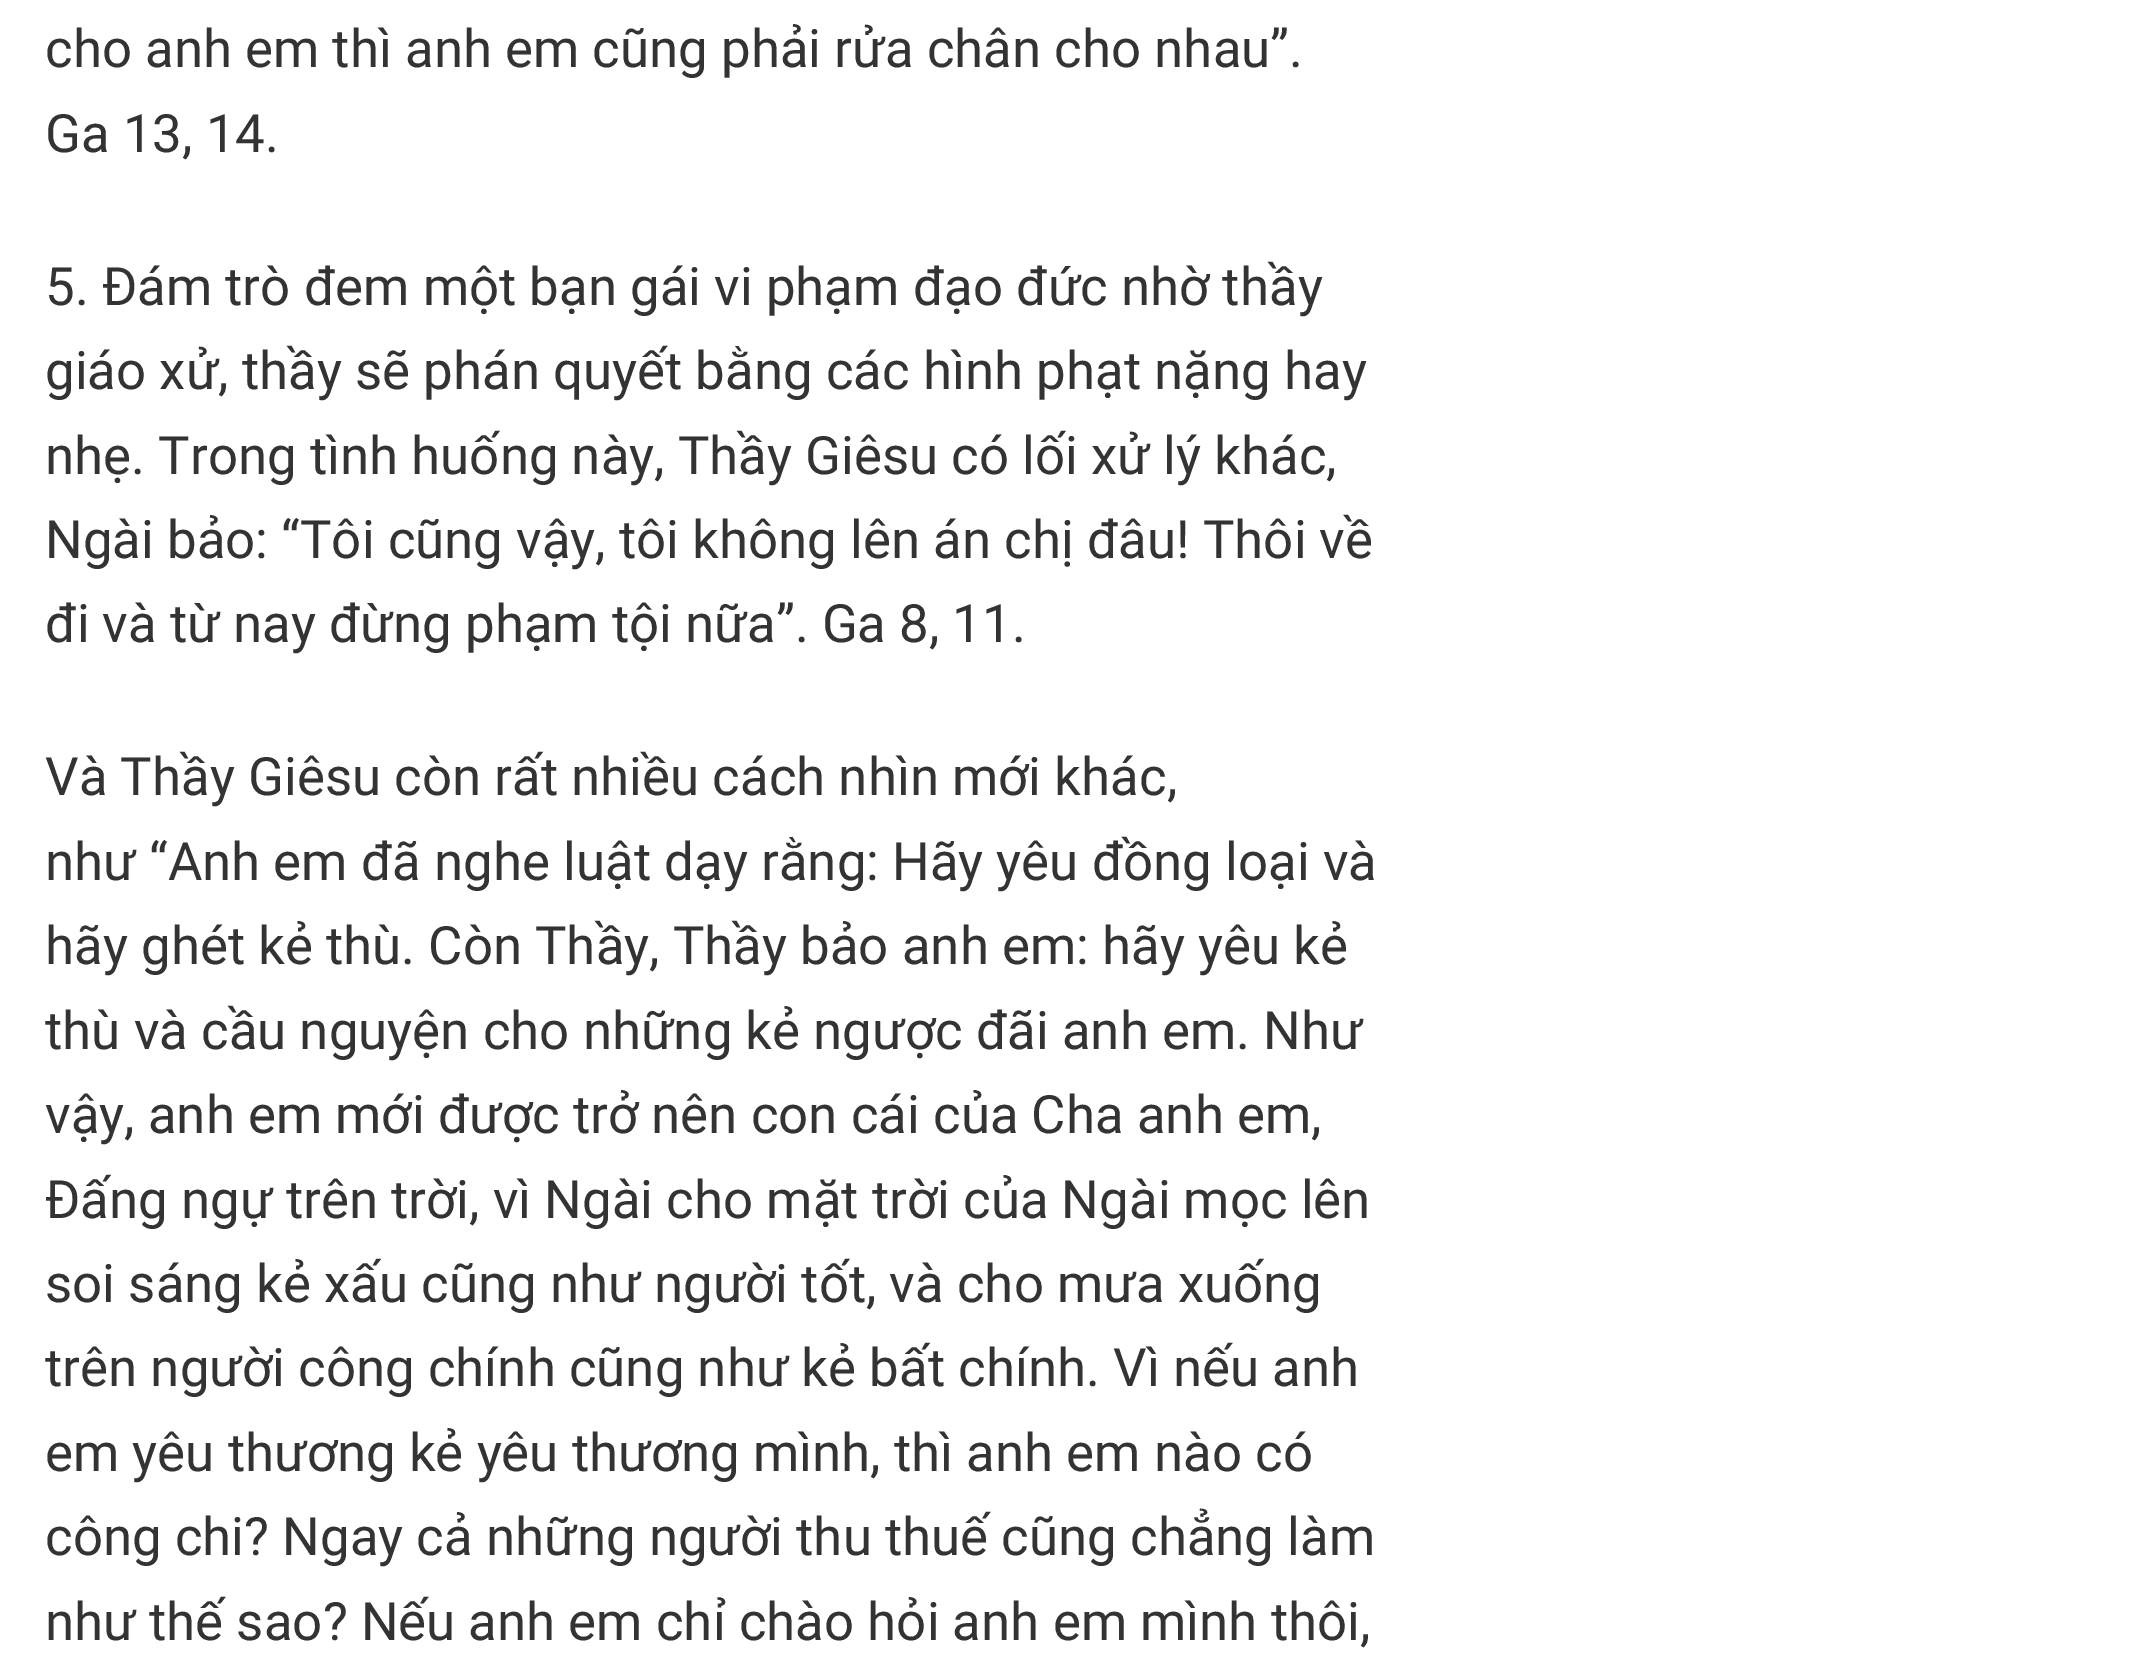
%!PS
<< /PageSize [2156 1670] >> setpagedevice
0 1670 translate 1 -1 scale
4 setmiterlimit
1 setgray
0 0 2156 1670 rectfill
/Roboto-Regular [52.8 0 0 -52.8 0 0] selectfont
0.2 setgray
45 67 moveto (cho anh em thì anh em cũng phải rửa chân cho nhau”.) show
45 152 moveto (Ga 13, 14.) show
45 305 moveto (5. Đám trò đem một bạn gái vi phạm đạo đức nhờ thầy) show
45 389 moveto (giáo xử, thầy sẽ phán quyết bằng các hình phạt nặng hay) show
45 474 moveto (nhẹ. Trong tình huống này, Thầy Giêsu có lối xử lý khác,) show
45 558 moveto (Ngài bảo: “Tôi cũng vậy, tôi không lên án chị đâu! Thôi về) show
45 642 moveto (đi và từ nay đừng phạm tội nữa”. Ga 8, 11.) show
45 795 moveto (Và Thầy Giêsu còn rất nhiều cách nhìn mới khác,) show
45 880 moveto (như “Anh em đã nghe luật dạy rằng: Hãy yêu đồng loại và) show
45 964 moveto (hãy ghét kẻ thù. Còn Thầy, Thầy bảo anh em: hãy yêu kẻ) show
45 1049 moveto (thù và cầu nguyện cho những kẻ ngược đãi anh em. Như) show
45 1133 moveto (vậy, anh em mới được trở nên con cái của Cha anh em,) show
45 1218 moveto (Đấng ngự trên trời, vì Ngài cho mặt trời của Ngài mọc lên) show
45 1302 moveto (soi sáng kẻ xấu cũng như người tốt, và cho mưa xuống) show
45 1386 moveto (trên người công chính cũng như kẻ bất chính. Vì nếu anh) show
45 1471 moveto (em yêu thương kẻ yêu thương mình, thì anh em nào có) show
45 1555 moveto (công chi? Ngay cả những người thu thuế cũng chẳng làm) show
45 1640 moveto (như thế sao? Nếu anh em chỉ chào hỏi anh em mình thôi,) show
showpage
